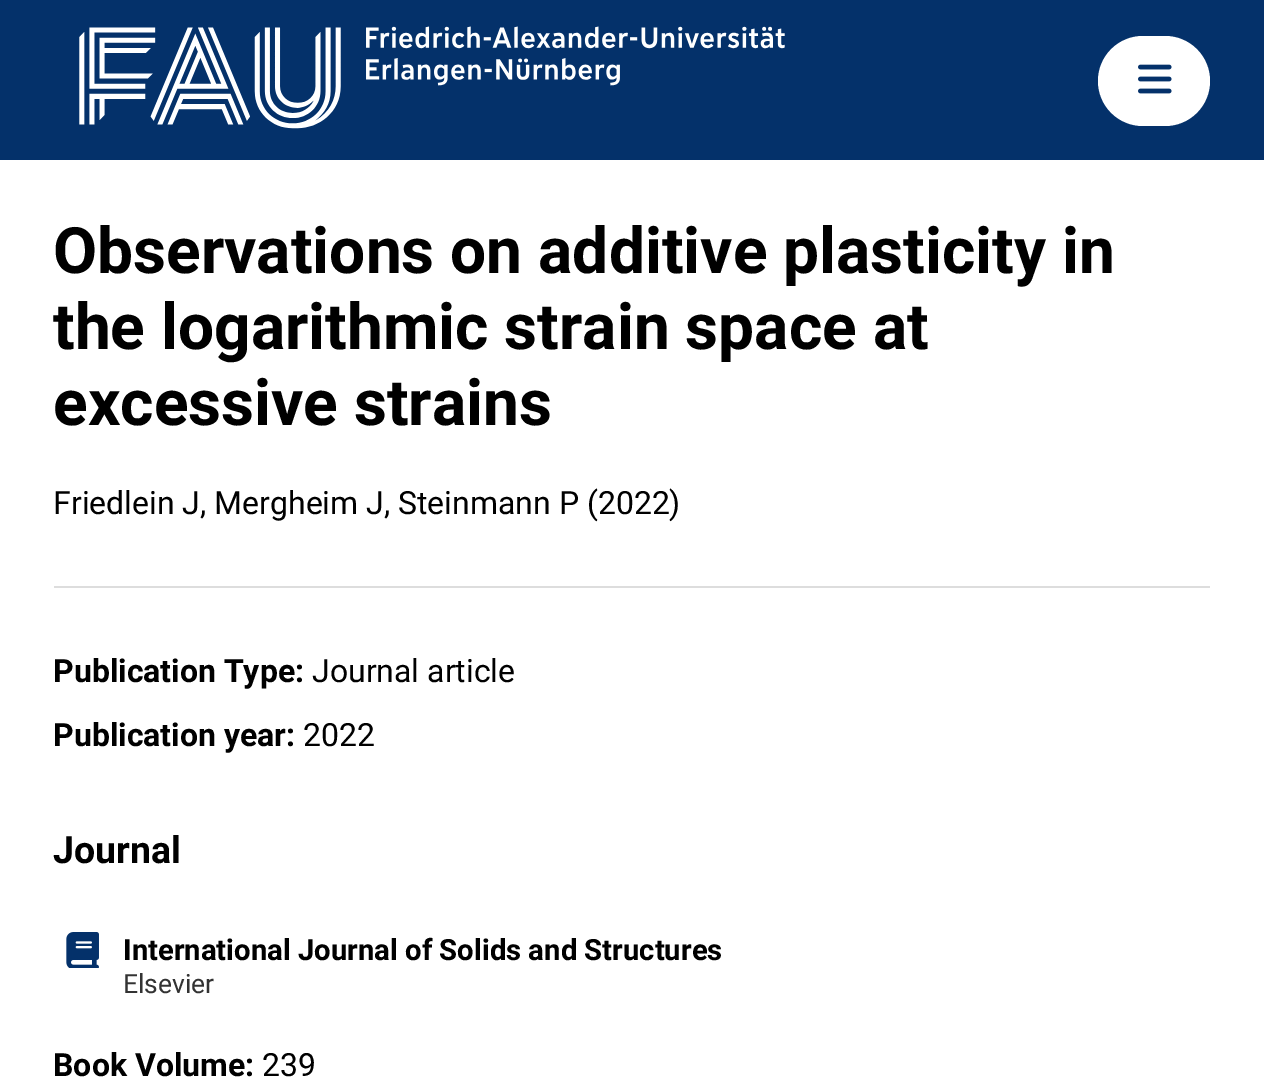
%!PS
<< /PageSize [1264 1083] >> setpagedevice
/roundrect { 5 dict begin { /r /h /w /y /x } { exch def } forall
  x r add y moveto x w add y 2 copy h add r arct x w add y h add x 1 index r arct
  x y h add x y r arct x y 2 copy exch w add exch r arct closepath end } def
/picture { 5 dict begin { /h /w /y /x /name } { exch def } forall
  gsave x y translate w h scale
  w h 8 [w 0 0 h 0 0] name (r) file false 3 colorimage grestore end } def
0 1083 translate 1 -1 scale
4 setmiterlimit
1 setgray
0 0 1264 1083 rectfill
0.016 0.192 0.416 setrgbcolor
0 0 1264 160 rectfill
(img1.rgb) 79 26 706 103 picture
1 setgray
1098 36 112 90 45 roundrect fill
(img2.rgb) 1138 64 34 30 picture
/Roboto-Bold [64 0 0 -64 0 0] selectfont
0 setgray
53 273 moveto (Observations on additive plasticity in) show
53 349 moveto (the logarithmic strain space at) show
53 425 moveto (excessive strains) show
/Roboto-Regular [32 0 0 -32 0 0] selectfont
53 514 moveto (Friedlein J, Mergheim J, Steinmann P \(2022\)) show
0.867 setgray
54 586 1156 2 rectfill
/Roboto-Bold [32 0 0 -32 0 0] selectfont
0 setgray
53 682 moveto (Publication Type:) show
/Roboto-Regular [32 0 0 -32 0 0] selectfont
312 682 moveto (Journal article) show
/Roboto-Bold [32 0 0 -32 0 0] selectfont
53 746 moveto (Publication year:) show
/Roboto-Regular [32 0 0 -32 0 0] selectfont
303 746 moveto (2022) show
/Roboto-Bold [37.5 0 0 -37.5 0 0] selectfont
53 863 moveto (Journal) show
(img3.rgb) 66 932 33 36 picture
/Roboto-Bold [29.3 0 0 -29.3 0 0] selectfont
123 960 moveto (International Journal of Solids and Structures) show
/Roboto-Regular [26.5 0 0 -26.5 0 0] selectfont
0.2 setgray
123 993 moveto (Elsevier) show
/Roboto-Bold [32 0 0 -32 0 0] selectfont
0 setgray
53 1076 moveto (Book Volume:) show
/Roboto-Regular [32 0 0 -32 0 0] selectfont
262 1076 moveto (239) show
showpage
